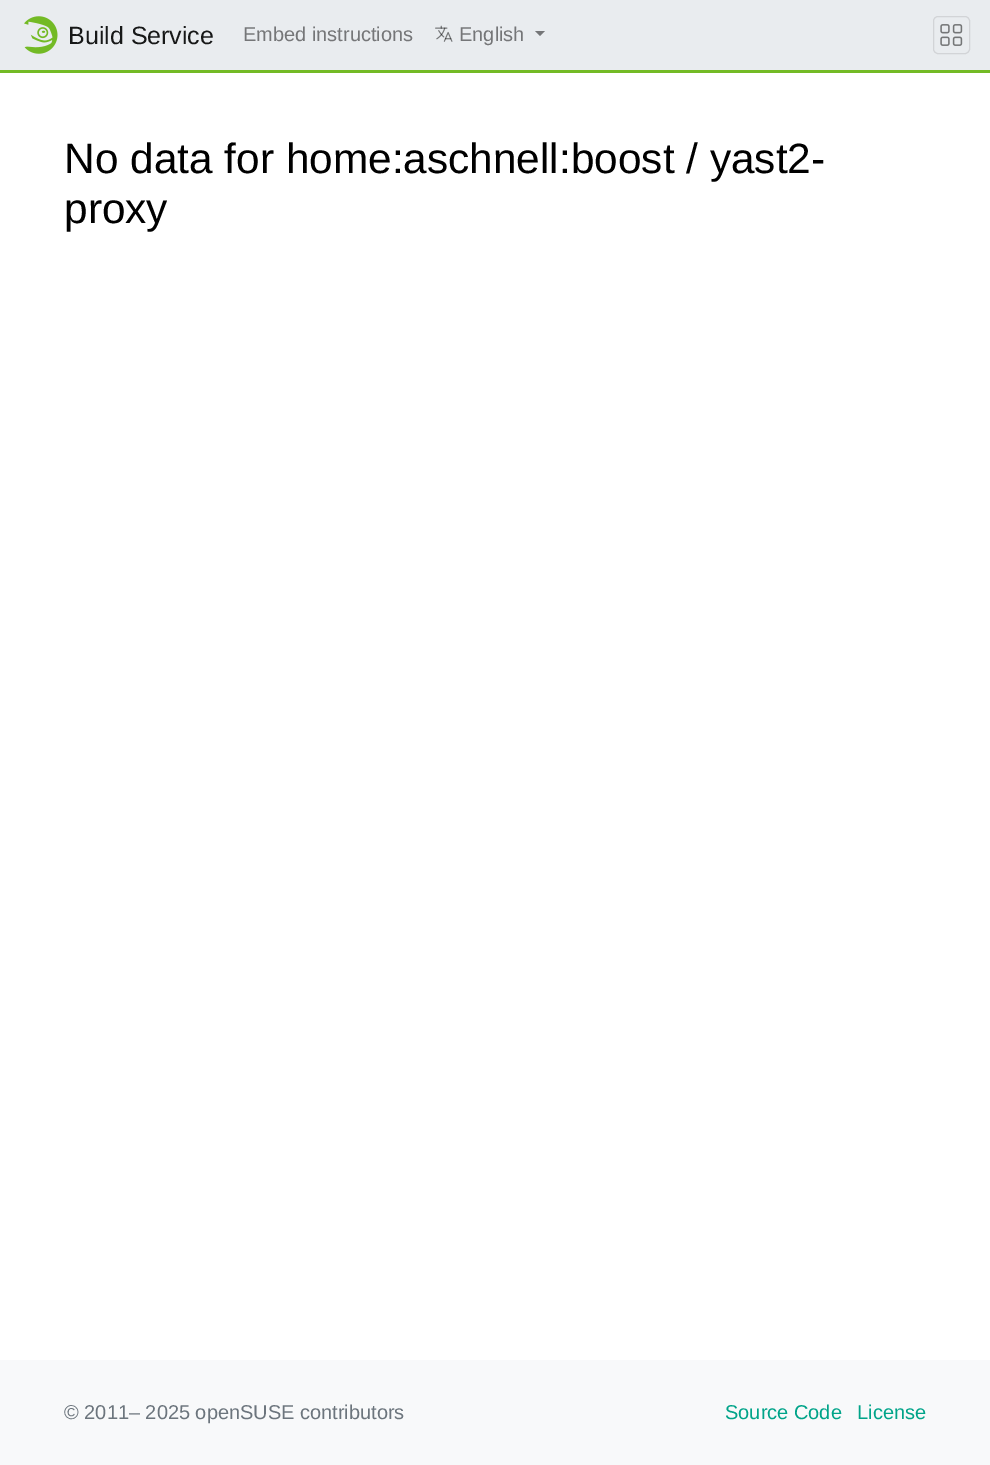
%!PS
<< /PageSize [990 1465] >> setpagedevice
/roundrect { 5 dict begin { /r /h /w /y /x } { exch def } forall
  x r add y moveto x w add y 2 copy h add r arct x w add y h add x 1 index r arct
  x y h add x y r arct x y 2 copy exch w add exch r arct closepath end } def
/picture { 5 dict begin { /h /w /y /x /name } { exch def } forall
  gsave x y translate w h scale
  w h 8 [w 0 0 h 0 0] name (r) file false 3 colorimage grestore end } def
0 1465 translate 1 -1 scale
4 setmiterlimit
1 setgray
0 0 990 1465 rectfill
0.914 0.925 0.937 setrgbcolor
0 0 990 70 rectfill
0.451 0.729 0.145 setrgbcolor
0 70 990 3 rectfill
(img1.rgb) 24 16 34 38 picture
/LiberationSans-Regular [25 0 0 -25 0 0] selectfont
0.09 0.094 0.094 setrgbcolor
68 44 moveto (Build Service) show
/LiberationSans-Regular [20 0 0 -20 0 0] selectfont
0.459 0.463 0.471 setrgbcolor
243 41 moveto (Embed instructions) show
(img2.rgb) 435 25 18 17 picture
459 41 moveto (English) show
newpath 535 31 moveto 545 31 lineto 540 36 lineto closepath fill
0.824 0.831 0.843 setrgbcolor
933.5 16.5 36 37 4.5 roundrect stroke
(img3.rgb) 940 24 23 22 picture
/LiberationSans-Regular [42.4 0 0 -42.4 0 0] selectfont
0 setgray
64 173 moveto (No data for home:aschnell:boost / yast2-) show
64 223 moveto (proxy) show
0.973 0.976 0.98 setrgbcolor
0 1360 990 105 rectfill
/LiberationSans-Regular [20 0 0 -20 0 0] selectfont
0.424 0.459 0.49 setrgbcolor
64 1419 moveto (© 2011– 2025 openSUSE contributors) show
0 0.643 0.537 setrgbcolor
725 1419 moveto (Source Code) show
857 1419 moveto (License) show
showpage
